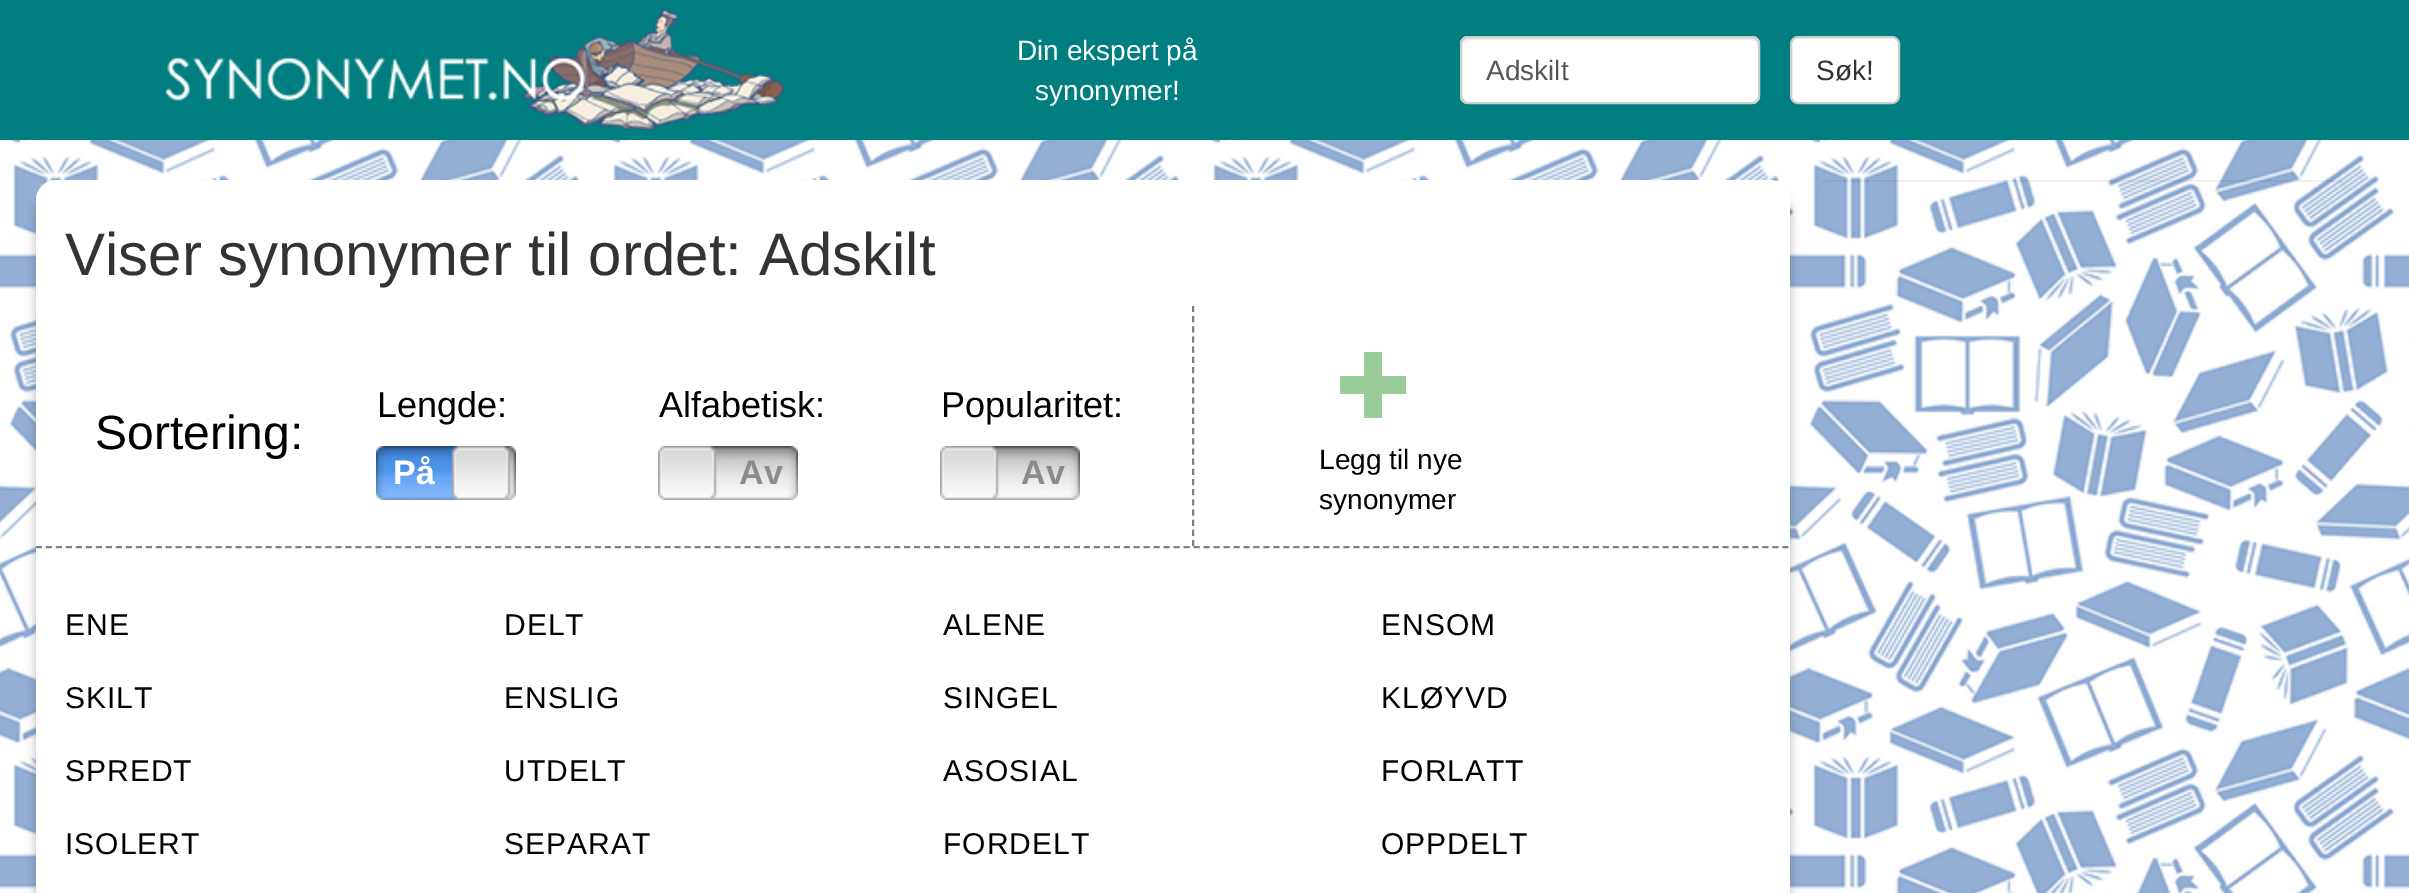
%!PS
<< /PageSize [2409 893] /PageUsesTransparency true >> setpagedevice
/alpha { dup .setfillconstantalpha .setstrokeconstantalpha } def
/roundrect { 5 dict begin { /r /h /w /y /x } { exch def } forall
  x r add y moveto x w add y 2 copy h add r arct x w add y h add x 1 index r arct
  x y h add x y r arct x y 2 copy exch w add exch r arct closepath end } def
/shadow { 12 dict begin { /a /b /q /h /w /y /x } { exch def } forall gsave /was 0 def
  9 -2 -9 { dup b mul 4 div /e exch def 1 sub .425 mul 2.718 exch exp 1 add a .99 .min exch div /now exch def
    1 1 now sub 1 was sub div sub alpha /was now def
    w h .min e 2 mul add 0 gt { x e sub y e sub w e 2 mul add h e 2 mul add
      q e add b .6 mul add w h .min 2 div e add .min 0 .max roundrect fill } if } for grestore end } def
/picture { 5 dict begin { /h /w /y /x /name } { exch def } forall
  gsave x y translate w h scale
  w h 8 [w 0 0 h 0 0] name (r) file false 3 colorimage grestore end } def
0 .pushpdf14devicefilter
0 893 translate 1 -1 scale
4 setmiterlimit
1 setgray
0 0 2409 893 rectfill
(img1.rgb) 0 140 2409 753 picture
0 0.494 0.502 setrgbcolor
0 0 2409 140 rectfill
(img2.rgb) 166 10 618 120 picture
/LiberationSans-Regular [28 0 0 -28 0 0] selectfont
1 setgray
1017 60 moveto (Din ekspert på) show
1035 100 moveto (synonymer!) show
1460 36 300 68 8 roundrect fill
0.925 setgray
newpath 1468 40 moveto 1752 40 lineto 1755 40 1758 43 1758 46 curveto 1758 44 lineto 1758 41 1755 38 1752 38 curveto 1468 38 lineto 1465 38 1462 41 1462 44 curveto 1462 46 lineto 1462 43 1465 40 1468 40 curveto closepath fill
0.8 setgray
2 setlinewidth
1461 37 298 66 7 roundrect stroke
0.333 setgray
1486 80 moveto (Adskilt) show
1 setgray
1791 37 108 66 7 roundrect gsave fill grestore
0.8 setgray
stroke
0.2 setgray
1816 80 moveto (Søk!) show
0.05 alpha
0 setgray
newpath 1828 182 moveto 2338 182 lineto 2342 182 2346 186 2346 190 curveto 2346 188 lineto 2346 184 2342 180 2338 180 curveto 1828 180 lineto 1824 180 1820 184 1820 188 curveto 1820 190 lineto 1820 186 1824 182 1828 182 curveto closepath fill
1 alpha
0.196 setgray
36 192 1754 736 20 5 0.35 shadow
1 setgray
36 180 1754 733 20 roundrect fill
/LiberationSans-Regular [60 0 0 -60 0 0] selectfont
0.2 setgray
65 275 moveto (Viser synonymer til ordet: Adskilt) show
0.502 setgray
[6 4.18] 0 setdash
newpath 1193 306 moveto 1193 546 lineto stroke
/LiberationSans-Regular [48 0 0 -48 0 0] selectfont
0 setgray
95 449 moveto (Sortering:) show
/LiberationSans-Regular [36 0 0 -36 0 0] selectfont
377 417 moveto (Lengde:) show
(img6.rgb) 376 446 82 54 picture
(img3.rgb) 452 446 6 54 picture
(img7.rgb) 504 446 12 54 picture
(img4.rgb) 504 446 7 54 picture
(img5.rgb) 458 446 46 54 picture
/LiberationSans-Bold [34 0 0 -34 0 0] selectfont
1 setgray
393 484 moveto (På) show
/LiberationSans-Regular [36 0 0 -36 0 0] selectfont
0 setgray
659 417 moveto (Alfabetisk:) show
(img8.rgb) 658 446 6 54 picture
(img10.rgb) 710 446 88 54 picture
(img9.rgb) 710 446 7 54 picture
(img5.rgb) 664 446 46 54 picture
/LiberationSans-Bold [34 0 0 -34 0 0] selectfont
0.545 setgray
739 484 moveto (Av) show
/LiberationSans-Regular [36 0 0 -36 0 0] selectfont
0 setgray
941 417 moveto (Popularitet:) show
(img8.rgb) 940 446 6 54 picture
(img10.rgb) 992 446 88 54 picture
(img9.rgb) 992 446 7 54 picture
(img5.rgb) 946 446 46 54 picture
/LiberationSans-Bold [34 0 0 -34 0 0] selectfont
0.545 setgray
1021 484 moveto (Av) show
0.6 0.8 0.6 setrgbcolor
newpath 1340 394 moveto 1340 376 lineto 1364 376 lineto 1364 352 lineto 1382 352 lineto 1382 376 lineto 1406 376 lineto 1406 394 lineto 1382 394 lineto 1382 418 lineto 1364 418 lineto 1364 394 lineto closepath fill
/LiberationSans-Regular [28 0 0 -28 0 0] selectfont
0 setgray
1319 469 moveto (Legg til nye) show
1319 509 moveto (synonymer) show
0.502 setgray
[6 3.98] 0 setdash
newpath 36 547 moveto 1790 547 lineto stroke
/LiberationSans-Regular [30 0 0 -30 0 0] selectfont
0 setgray
65 635 moveto 1 0 (ENE) ashow
504 635 moveto 1 0 (DELT) ashow
943 635 moveto 1 0 (ALENE) ashow
1381 635 moveto 1 0 (ENSOM) ashow
65 708 moveto 1 0 (SKILT) ashow
504 708 moveto 1 0 (ENSLIG) ashow
943 708 moveto 1 0 (SINGEL) ashow
1381 708 moveto 1 0 (KLØYVD) ashow
65 781 moveto 1 0 (SPREDT) ashow
504 781 moveto 1 0 (UTDELT) ashow
943 781 moveto 1 0 (ASOSIAL) ashow
1381 781 moveto 1 0 (FORLATT) ashow
65 854 moveto 1 0 (ISOLERT) ashow
504 854 moveto 1 0 (SEPARAT) ashow
943 854 moveto 1 0 (FORDELT) ashow
1381 854 moveto 1 0 (OPPDELT) ashow
.poppdf14devicefilter showpage
